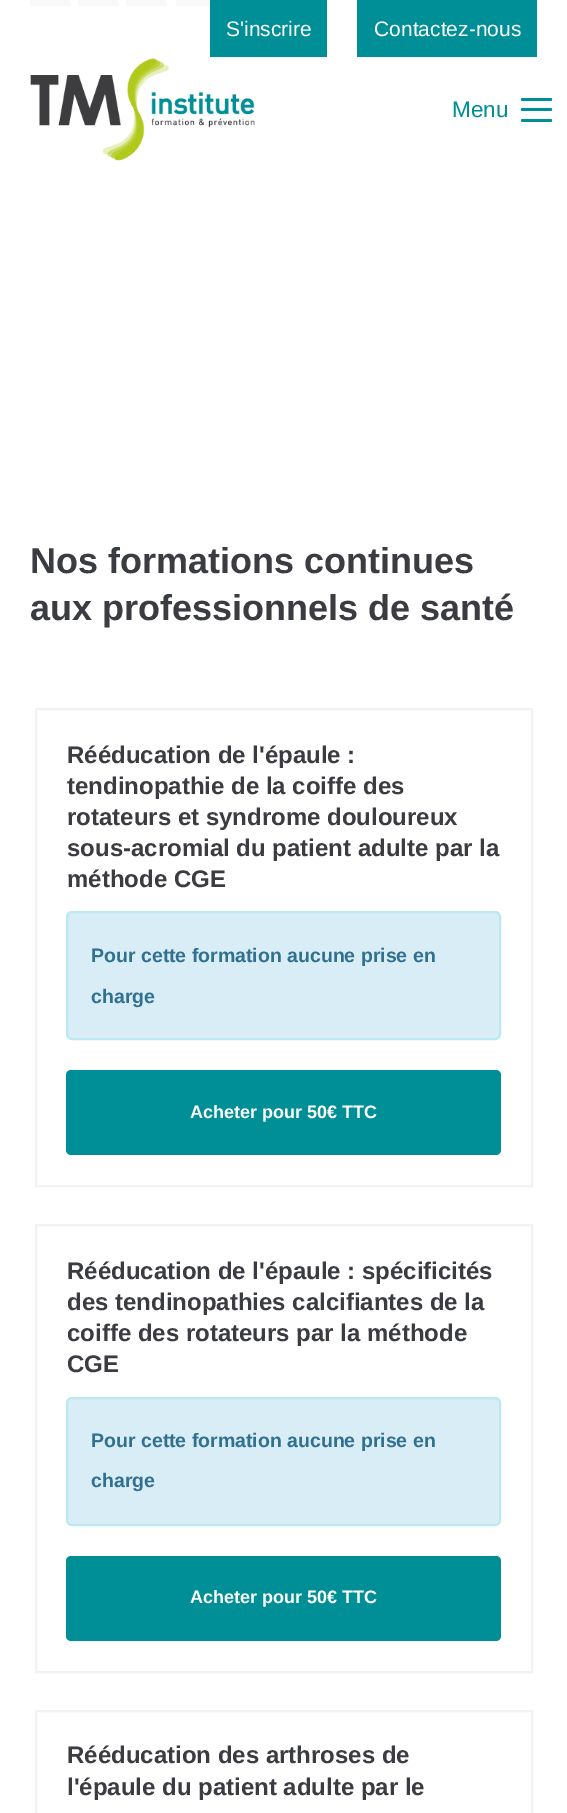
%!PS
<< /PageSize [567 1813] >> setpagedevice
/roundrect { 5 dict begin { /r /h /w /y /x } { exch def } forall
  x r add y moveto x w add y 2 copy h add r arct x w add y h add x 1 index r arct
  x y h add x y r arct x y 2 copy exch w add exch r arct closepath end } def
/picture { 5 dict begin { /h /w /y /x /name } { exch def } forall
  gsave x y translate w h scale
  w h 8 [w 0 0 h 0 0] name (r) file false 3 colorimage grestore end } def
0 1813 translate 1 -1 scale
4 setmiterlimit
1 setgray
0 0 567 1813 rectfill
0.976 setgray
30 0 41 6 rectfill
78 0 41 6 rectfill
126 0 41 6 rectfill
176 0 40 6 rectfill
0 0.557 0.592 setrgbcolor
210 0 117 57 rectfill
/LiberationSans-Regular [21 0 0 -21 0 0] selectfont
1 setgray
226 36 moveto (S'inscrire) show
0 0.557 0.592 setrgbcolor
357 0 180 57 rectfill
1 setgray
374 36 moveto (Contactez-nous) show
(img1.rgb) 30 58 225 103 picture
/LiberationSans-Regular [22.5 0 0 -22.5 0 0] selectfont
0 0.557 0.592 setrgbcolor
452 117 moveto (Menu) show
521 108 31 3 1.5 roundrect fill
521 98 31 3 1.5 roundrect fill
521 119 31 3 1.5 roundrect fill
/LiberationSans-Bold [36 0 0 -36 0 0] selectfont
0.231 0.235 0.259 setrgbcolor
30 573 moveto (Nos formations continues) show
30 620 moveto (aux professionnels de santé) show
0.949 setgray
2 setlinewidth
36 709 496 477 rectstroke
/LiberationSans-Bold [24 0 0 -24 0 0] selectfont
0.231 0.235 0.259 setrgbcolor
67 763 moveto (Rééducation de l'épaule :) show
67 794 moveto (tendinopathie de la coiffe des) show
67 825 moveto (rotateurs et syndrome douloureux) show
67 856 moveto (sous-acromial du patient adulte par la) show
67 887 moveto (méthode CGE) show
0.851 0.929 0.969 setrgbcolor
67 912 433 127 5 roundrect gsave fill grestore
0.737 0.91 0.945 setrgbcolor
stroke
/LiberationSans-Bold [19.5 0 0 -19.5 0 0] selectfont
0.192 0.439 0.561 setrgbcolor
91 962 moveto (Pour cette formation aucune prise en) show
91 1003 moveto (charge) show
0 0.557 0.592 setrgbcolor
66 1070 435 85 5 roundrect fill
/LiberationSans-Bold [18 0 0 -18 0 0] selectfont
1 setgray
190 1118 moveto (Acheter pour 50€ TTC) show
0.949 setgray
36 1225 496 447 rectstroke
/LiberationSans-Bold [24 0 0 -24 0 0] selectfont
0.231 0.235 0.259 setrgbcolor
67 1279 moveto (Rééducation de l'épaule : spécificités) show
67 1310 moveto (des tendinopathies calcifiantes de la) show
67 1341 moveto (coiffe des rotateurs par la méthode) show
67 1372 moveto (CGE) show
0.851 0.929 0.969 setrgbcolor
67 1398 433 127 5 roundrect gsave fill grestore
0.737 0.91 0.945 setrgbcolor
stroke
/LiberationSans-Bold [19.5 0 0 -19.5 0 0] selectfont
0.192 0.439 0.561 setrgbcolor
91 1447 moveto (Pour cette formation aucune prise en) show
91 1487 moveto (charge) show
0 0.557 0.592 setrgbcolor
66 1556 435 85 5 roundrect fill
/LiberationSans-Bold [18 0 0 -18 0 0] selectfont
1 setgray
190 1603 moveto (Acheter pour 50€ TTC) show
0.949 setgray
36 1711 496 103 rectstroke
/LiberationSans-Bold [24 0 0 -24 0 0] selectfont
0.231 0.235 0.259 setrgbcolor
67 1763 moveto (Rééducation des arthroses de) show
67 1795 moveto (l'épaule du patient adulte par le) show
showpage
